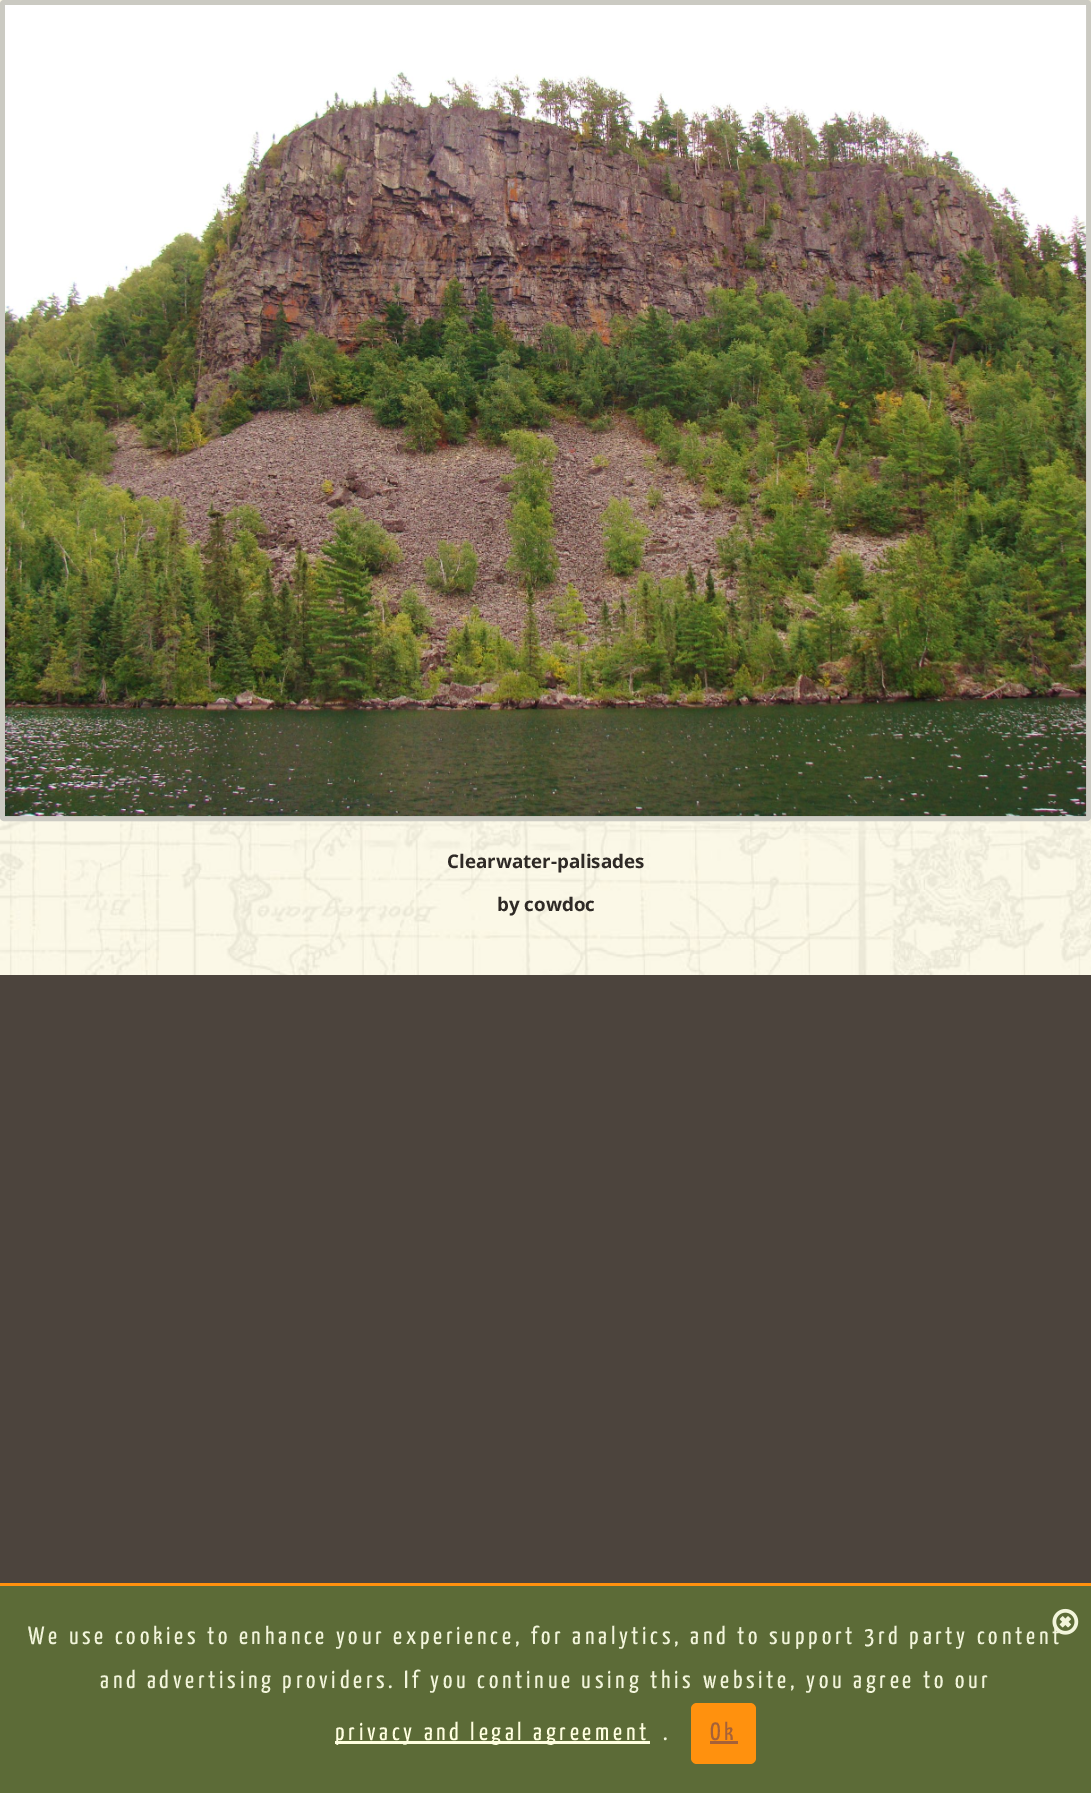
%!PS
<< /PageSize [1091 1793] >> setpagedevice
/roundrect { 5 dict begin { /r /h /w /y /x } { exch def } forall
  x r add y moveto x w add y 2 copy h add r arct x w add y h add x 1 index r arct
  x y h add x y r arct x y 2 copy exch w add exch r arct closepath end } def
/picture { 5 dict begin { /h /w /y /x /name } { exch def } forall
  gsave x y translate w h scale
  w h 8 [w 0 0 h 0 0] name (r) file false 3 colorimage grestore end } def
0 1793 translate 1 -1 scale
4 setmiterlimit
0.298 0.267 0.239 setrgbcolor
0 0 1091 1793 rectfill
(img1.rgb) 0 0 1091 975 picture
0.796 0.792 0.761 setrgbcolor
5 setlinewidth
2.5 2.5 1086 816 1.5 roundrect stroke
(img2.rgb) 5 5 1082 812 picture
/OpenSans-Bold [18.75 0 0 -18.75 0 0] selectfont
0.184 0.165 0.149 setrgbcolor
447 868 moveto (Clearwater-palisades) show
497 911 moveto (by cowdoc) show
0.361 0.42 0.216 setrgbcolor
0 1586 1091 207 rectfill
1 0.569 0.055 setrgbcolor
0 1583 1091 3 rectfill
/YanoneKaffeesatz-Regular [25 0 0 -25 0 0] selectfont
0.949 0.961 0.859 setrgbcolor
28 1644 moveto 3.75 0 (We use cookies to enhance your experience, for analytics, and to support 3rd party content) ashow
(img3.rgb) 1052 1608 27 27 picture
100 1688 moveto 3.75 0 (and advertising providers. If you continue using this website, you agree to our) ashow
1 1 0.878 setrgbcolor
335 1741 315 3 rectfill
335 1740 moveto 3.75 0 (privacy and legal agreement) ashow
0.949 0.961 0.859 setrgbcolor
663 1740 moveto 3.75 0 (.) ashow
1 0.569 0.055 setrgbcolor
691 1703 65 61 6 roundrect fill
0.651 0.38 0.22 setrgbcolor
710 1740 moveto 3.75 0 (Ok) ashow
710 1741 28 3 rectfill
showpage
